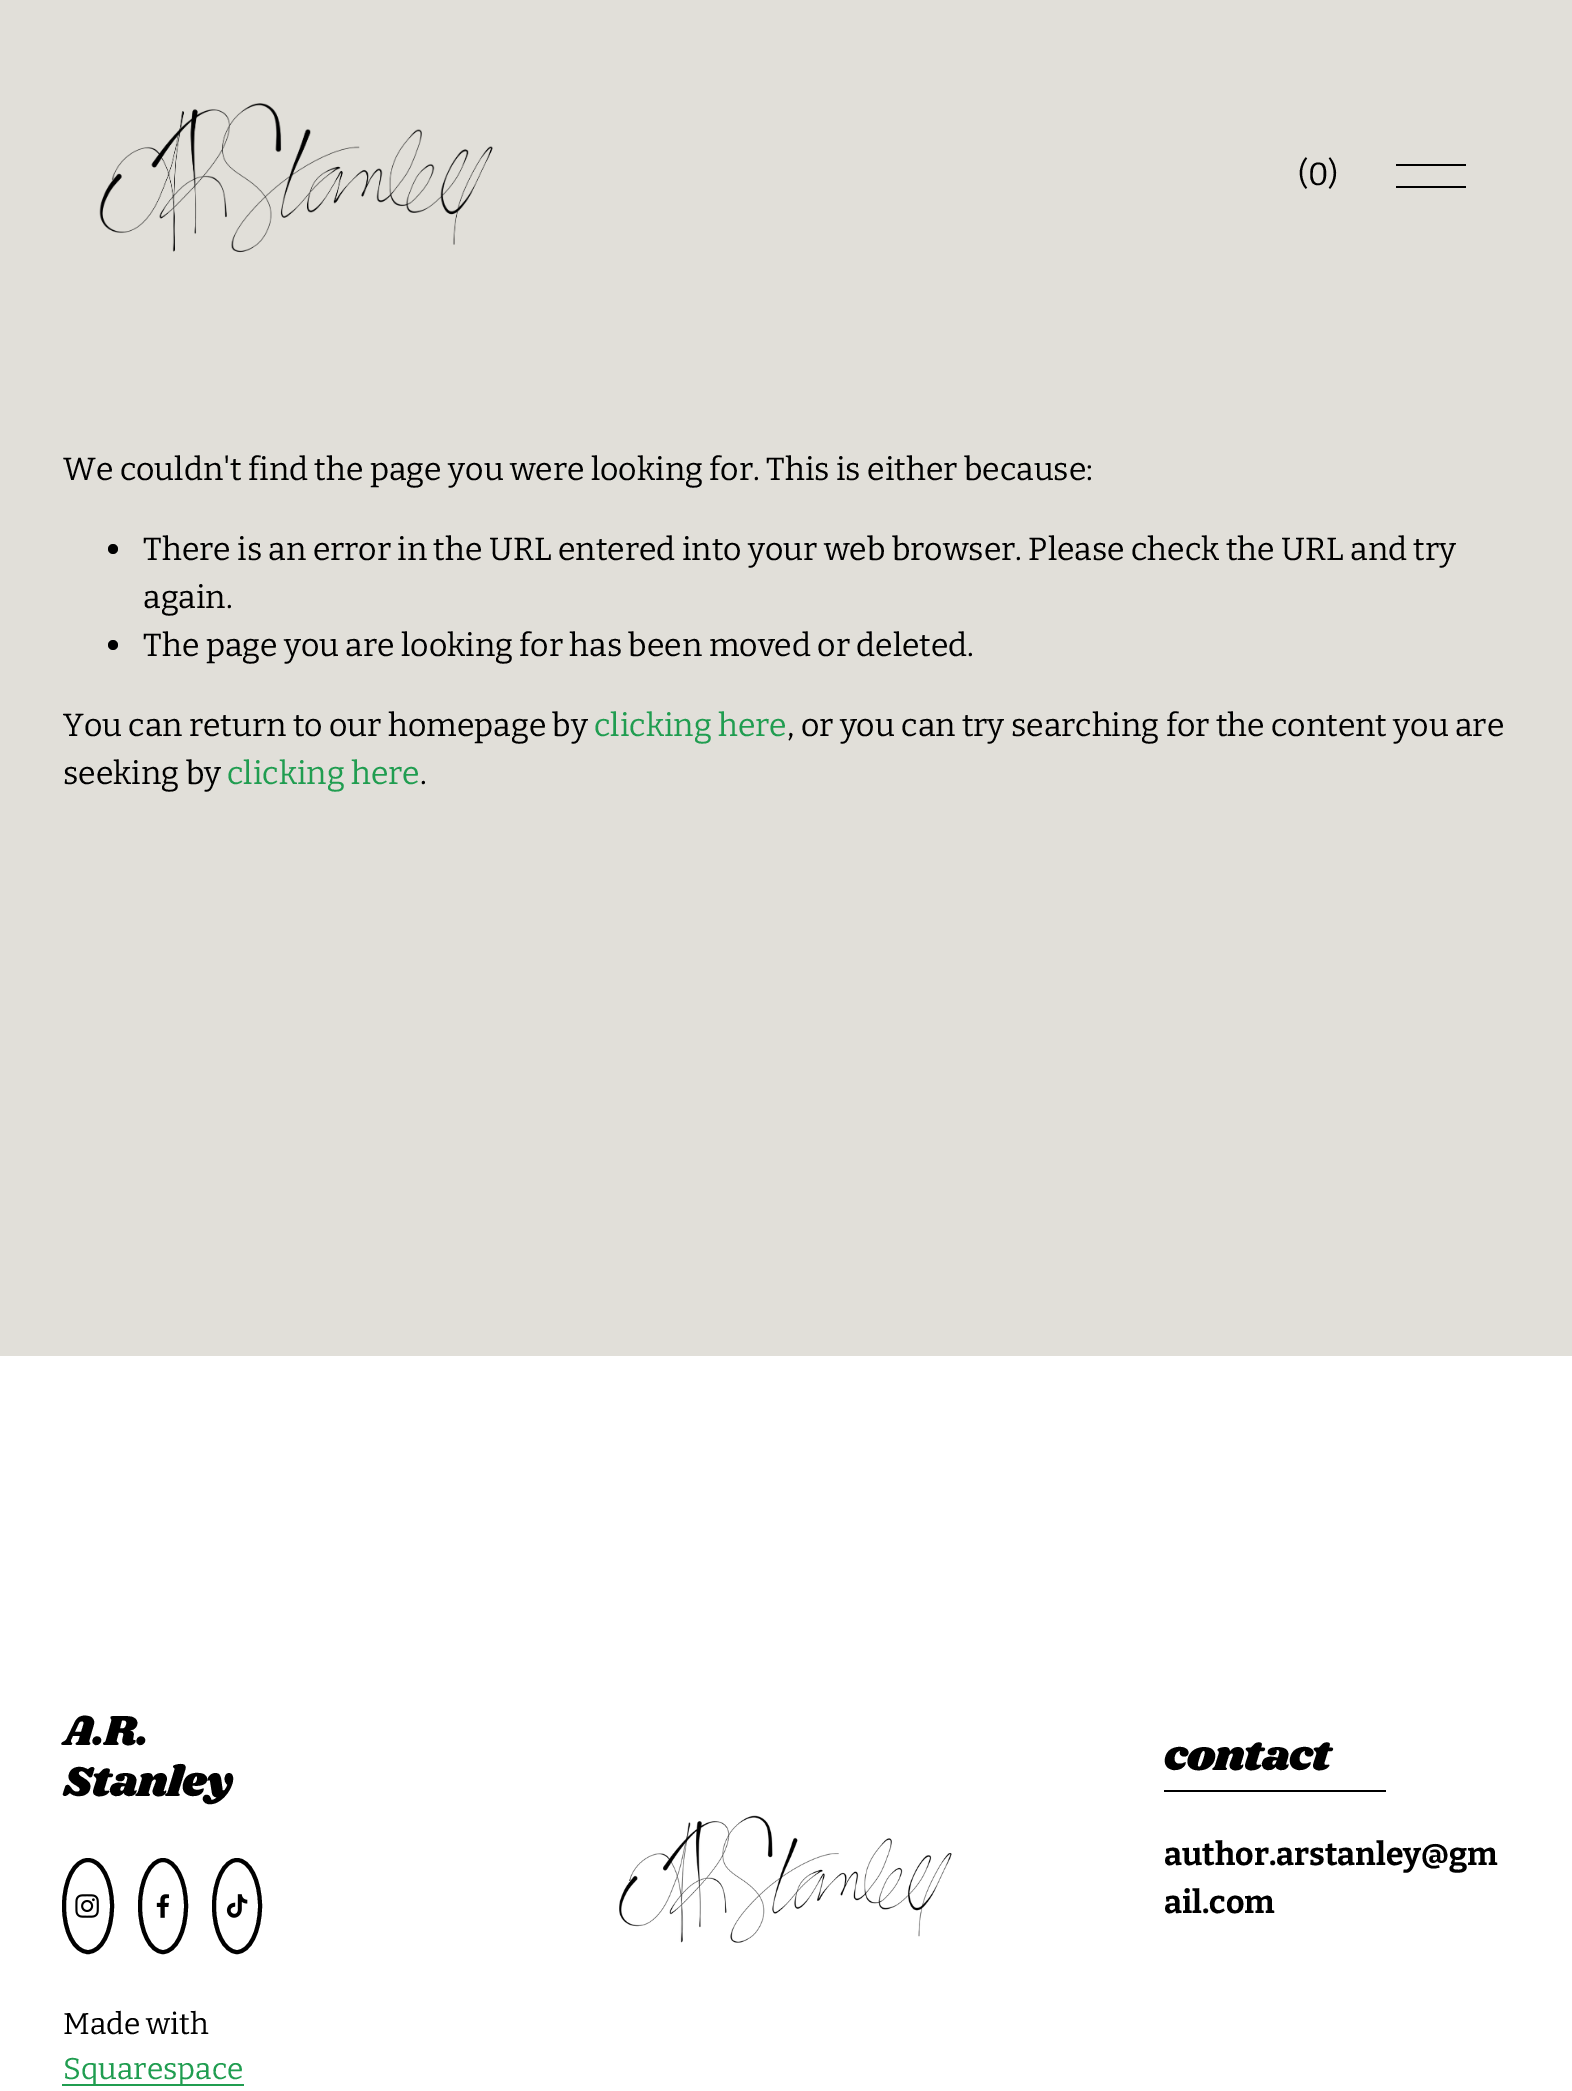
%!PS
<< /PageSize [1572 2091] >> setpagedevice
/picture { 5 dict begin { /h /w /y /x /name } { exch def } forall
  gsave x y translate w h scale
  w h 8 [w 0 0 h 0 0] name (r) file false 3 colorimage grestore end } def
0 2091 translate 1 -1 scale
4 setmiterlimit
0.882 0.875 0.851 setrgbcolor
0 0 1572 2091 rectfill
(img1.rgb) 99 103 394 150 picture
/Bitter-Regular [32 0 0 -32 0 0] selectfont
0 setgray
1298 185 moveto (\(0\)) show
1396 164 70 2 rectfill
1396 186 70 2 rectfill
63 480 moveto (We couldn't find the page you were looking for. This is either because:) show
newpath 113 549 5 0 360 arc closepath fill
143 560 moveto (There is an error in the URL entered into your web browser. Please check the URL and try) show
143 608 moveto (again.) show
newpath 113 645 5 0 360 arc closepath fill
143 656 moveto (The page you are looking for has been moved or deleted.) show
63 736 moveto (You can return to our homepage by) show
0.125 0.616 0.314 setrgbcolor
594 736 moveto (clicking here) show
0 setgray
787 736 moveto (, or you can try searching for the content you are) show
63 784 moveto (seeking by) show
0.125 0.616 0.314 setrgbcolor
227 784 moveto (clicking here) show
0 setgray
420 784 moveto (.) show
1 setgray
0 1356 1572 735 rectfill
/Shrikhand-Regular [43.5 0 0 -43.5 0 0] selectfont
0 setgray
63 1745 moveto -1 0 (A.R.) ashow
63 1796 moveto -1 0 (Stanley) ashow
1164 1770 moveto -1 0 (contact) ashow
1164 1790 222 2 rectfill
4 setlinewidth
newpath 88 1860 moveto 101.5 1860 112 1880.5 112 1906 curveto 112 1931.5 101.5 1952 88 1952 curveto 74.5 1952 64 1931.5 64 1906 curveto 64 1880.5 74.5 1860 88 1860 curveto closepath stroke
(img2.rgb) 75 1894 24 24 picture
newpath 163 1860 moveto 175.5 1860 186 1880.5 186 1906 curveto 186 1931.5 175.5 1952 163 1952 curveto 150.5 1952 140 1931.5 140 1906 curveto 140 1880.5 150.5 1860 163 1860 curveto closepath stroke
(img3.rgb) 156 1894 13 24 picture
newpath 237 1860 moveto 249.5 1860 260 1880.5 260 1906 curveto 260 1931.5 249.5 1952 237 1952 curveto 224.5 1952 214 1931.5 214 1906 curveto 214 1880.5 224.5 1860 237 1860 curveto closepath stroke
(img4.rgb) 226 1894 22 24 picture
(img5.rgb) 619 1815 333 128 picture
/Bitter-Bold [32 0 0 -32 0 0] selectfont
1164 1865 moveto (author.arstanley@gm) show
1164 1913 moveto (ail.com) show
/Bitter-Regular [30 0 0 -30 0 0] selectfont
63 2034 moveto (Made with) show
0.125 0.616 0.314 setrgbcolor
62 2084 182 2 rectfill
63 2079 moveto (Squarespace) show
showpage
